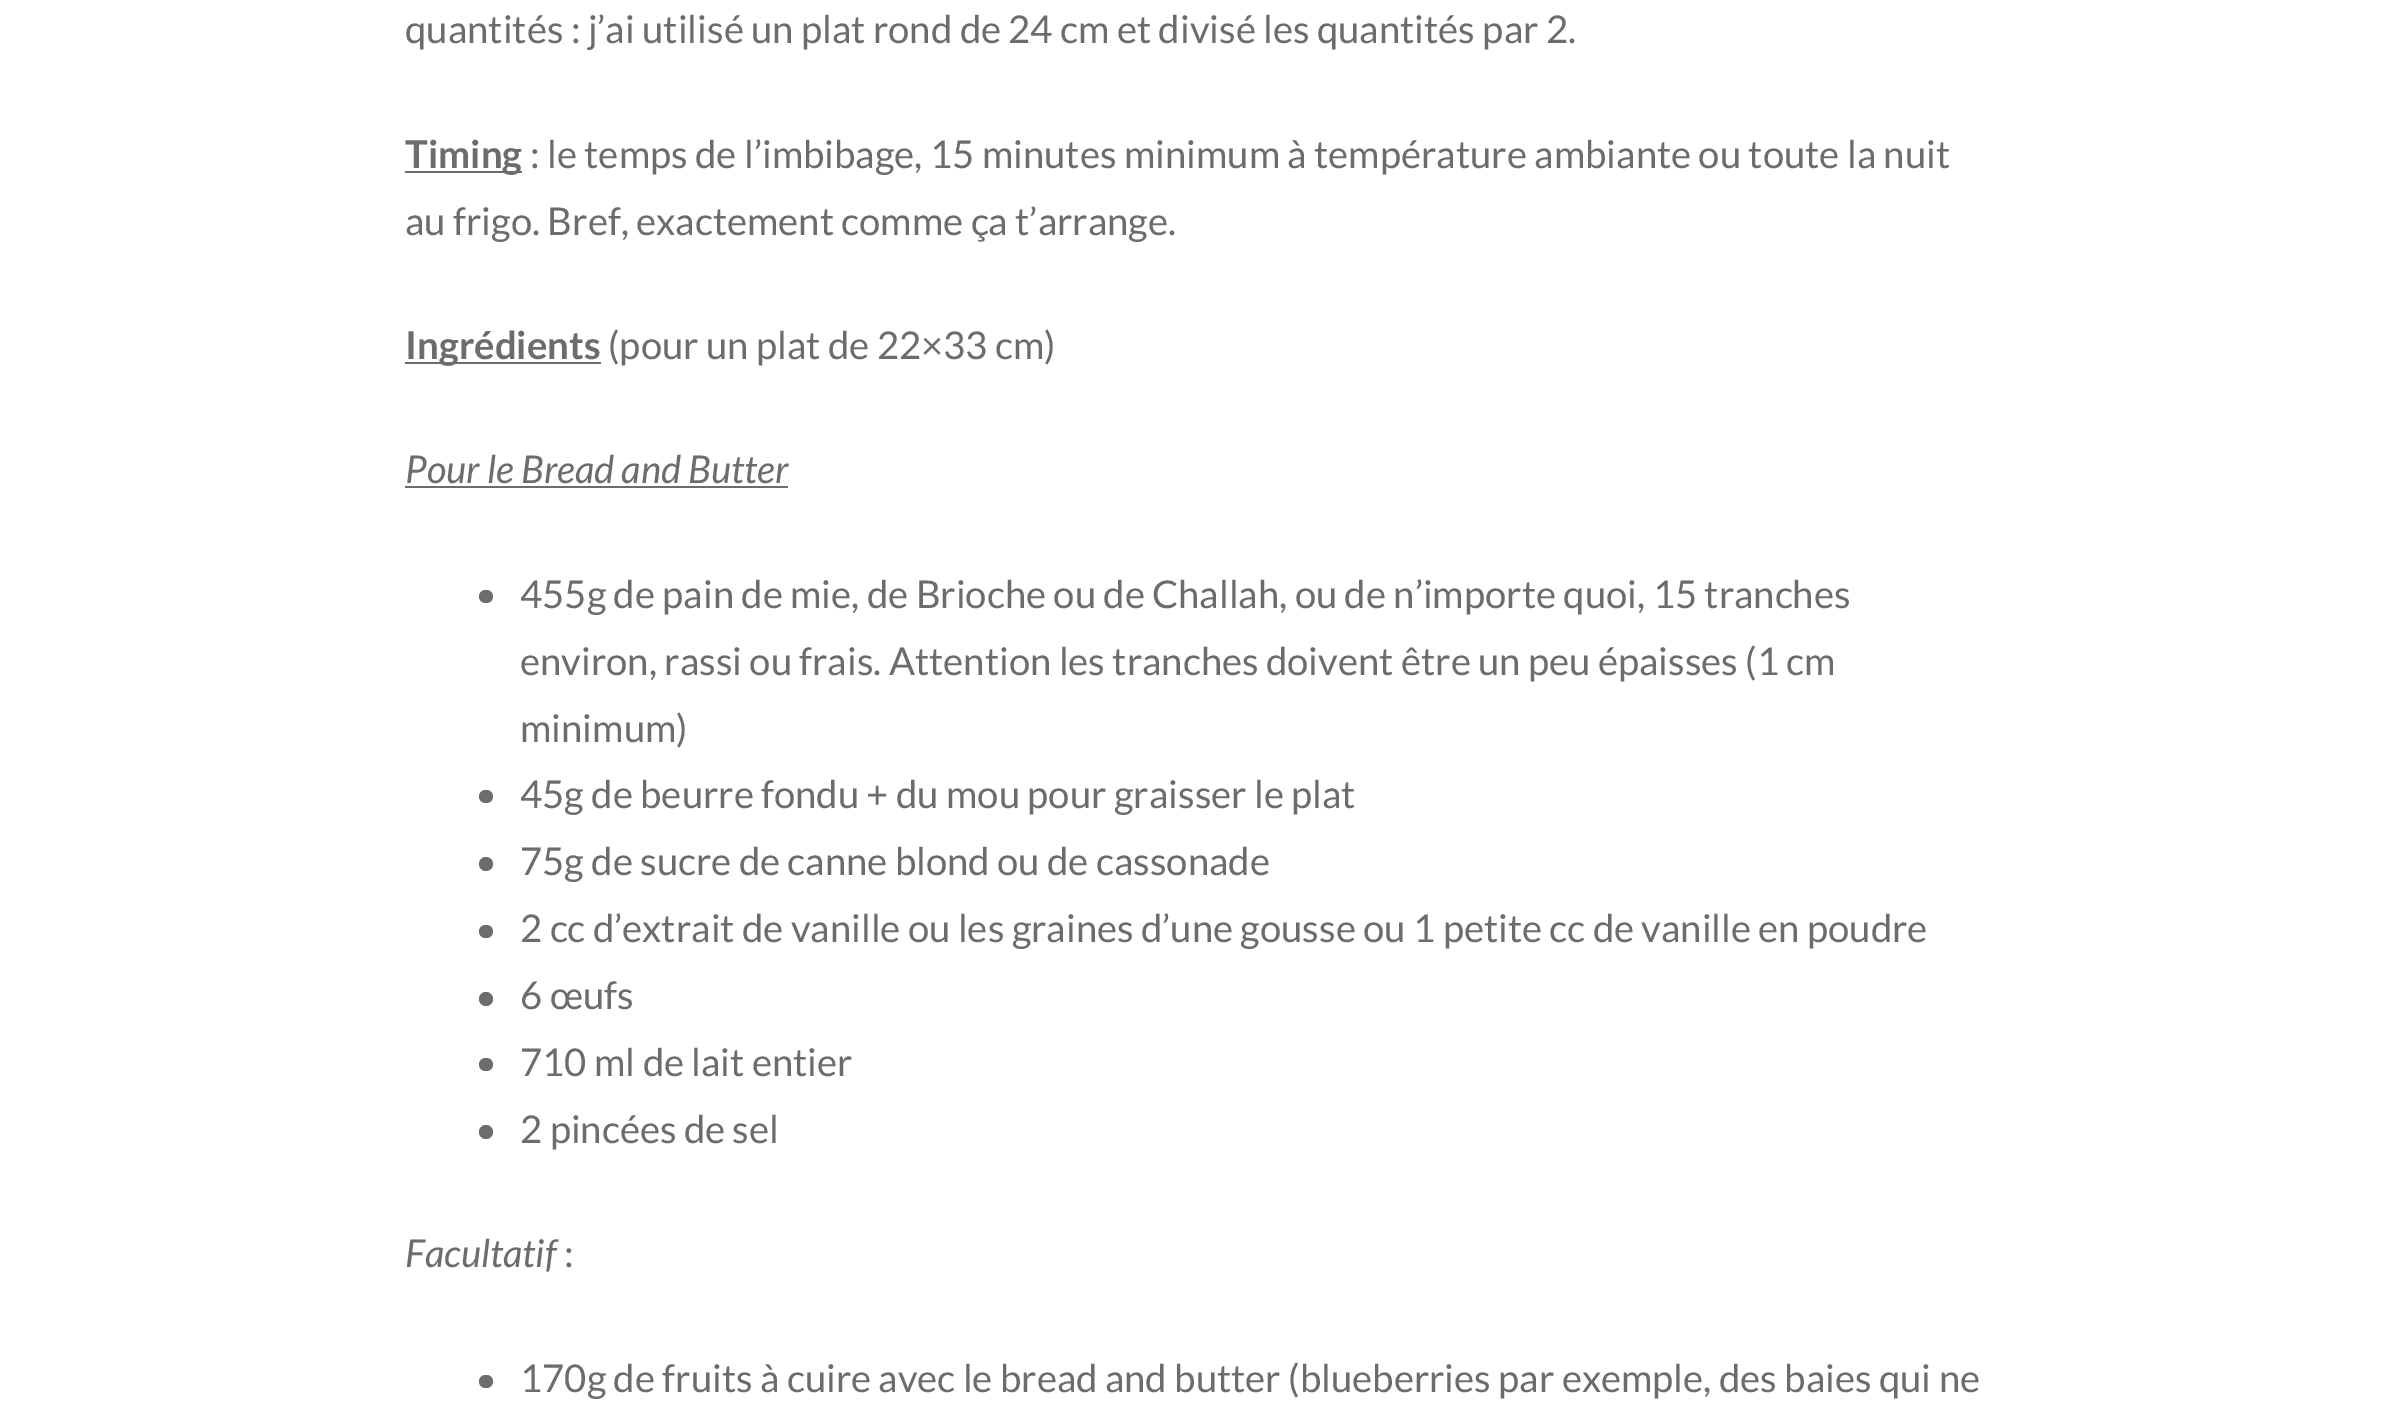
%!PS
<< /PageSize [2385 1414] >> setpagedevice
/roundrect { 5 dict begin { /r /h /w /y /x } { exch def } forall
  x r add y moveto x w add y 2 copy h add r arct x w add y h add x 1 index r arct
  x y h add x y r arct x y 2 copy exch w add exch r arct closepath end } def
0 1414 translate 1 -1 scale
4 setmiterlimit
1 setgray
0 0 2385 1414 rectfill
/Lato-Regular [38.25 0 0 -38.25 0 0] selectfont
0.416 0.424 0.431 setrgbcolor
405 43 moveto (quantités : j’ai utilisé un plat rond de 24 cm et divisé les quantités par 2.) show
405 171 117 2 rectfill
/Lato-Bold [38.25 0 0 -38.25 0 0] selectfont
405 168 moveto (Timing) show
/Lato-Regular [38.25 0 0 -38.25 0 0] selectfont
530 168 moveto (: le temps de l’imbibage, 15 minutes minimum à température ambiante ou toute la nuit) show
405 235 moveto (au frigo. Bref, exactement comme ça t’arrange.) show
405 362 196 2 rectfill
/Lato-Bold [38.25 0 0 -38.25 0 0] selectfont
405 359 moveto (Ingrédients) show
/Lato-Regular [38.25 0 0 -38.25 0 0] selectfont
608 359 moveto (\(pour un plat de 22×33 cm\)) show
/Lato-Italic [38.25 0 0 -38.25 0 0] selectfont
405 483 moveto (Pour le Bread and Butter) show
405 486 383 2 rectfill
479 590 14 13 6.5 roundrect fill
/Lato-Regular [38.25 0 0 -38.25 0 0] selectfont
520 608 moveto (455g de pain de mie, de Brioche ou de Challah, ou de n’importe quoi, 15 tranches) show
520 675 moveto (environ, rassi ou frais. Attention les tranches doivent être un peu épaisses \(1 cm) show
520 742 moveto (minimum\)) show
479 790 14 13 6.5 roundrect fill
520 808 moveto (45g de beurre fondu + du mou pour graisser le plat) show
newpath 486 864 7 0 360 arc closepath fill
520 875 moveto (75g de sucre de canne blond ou de cassonade) show
479 925 14 13 6.5 roundrect fill
520 942 moveto (2 cc d’extrait de vanille ou les graines d’une gousse ou 1 petite cc de vanille en poudre) show
newpath 486 999 7 0 360 arc closepath fill
520 1009 moveto (6 œufs) show
479 1058 14 13 6.5 roundrect fill
520 1076 moveto (710 ml de lait entier) show
newpath 486 1132 7 0 360 arc closepath fill
520 1143 moveto (2 pincées de sel) show
/Lato-Italic [38.25 0 0 -38.25 0 0] selectfont
405 1267 moveto (Facultatif) show
/Lato-Regular [38.25 0 0 -38.25 0 0] selectfont
564 1267 moveto (:) show
479 1375 14 13 6.5 roundrect fill
520 1392 moveto (170g de fruits à cuire avec le bread and butter \(blueberries par exemple, des baies qui ne) show
showpage
